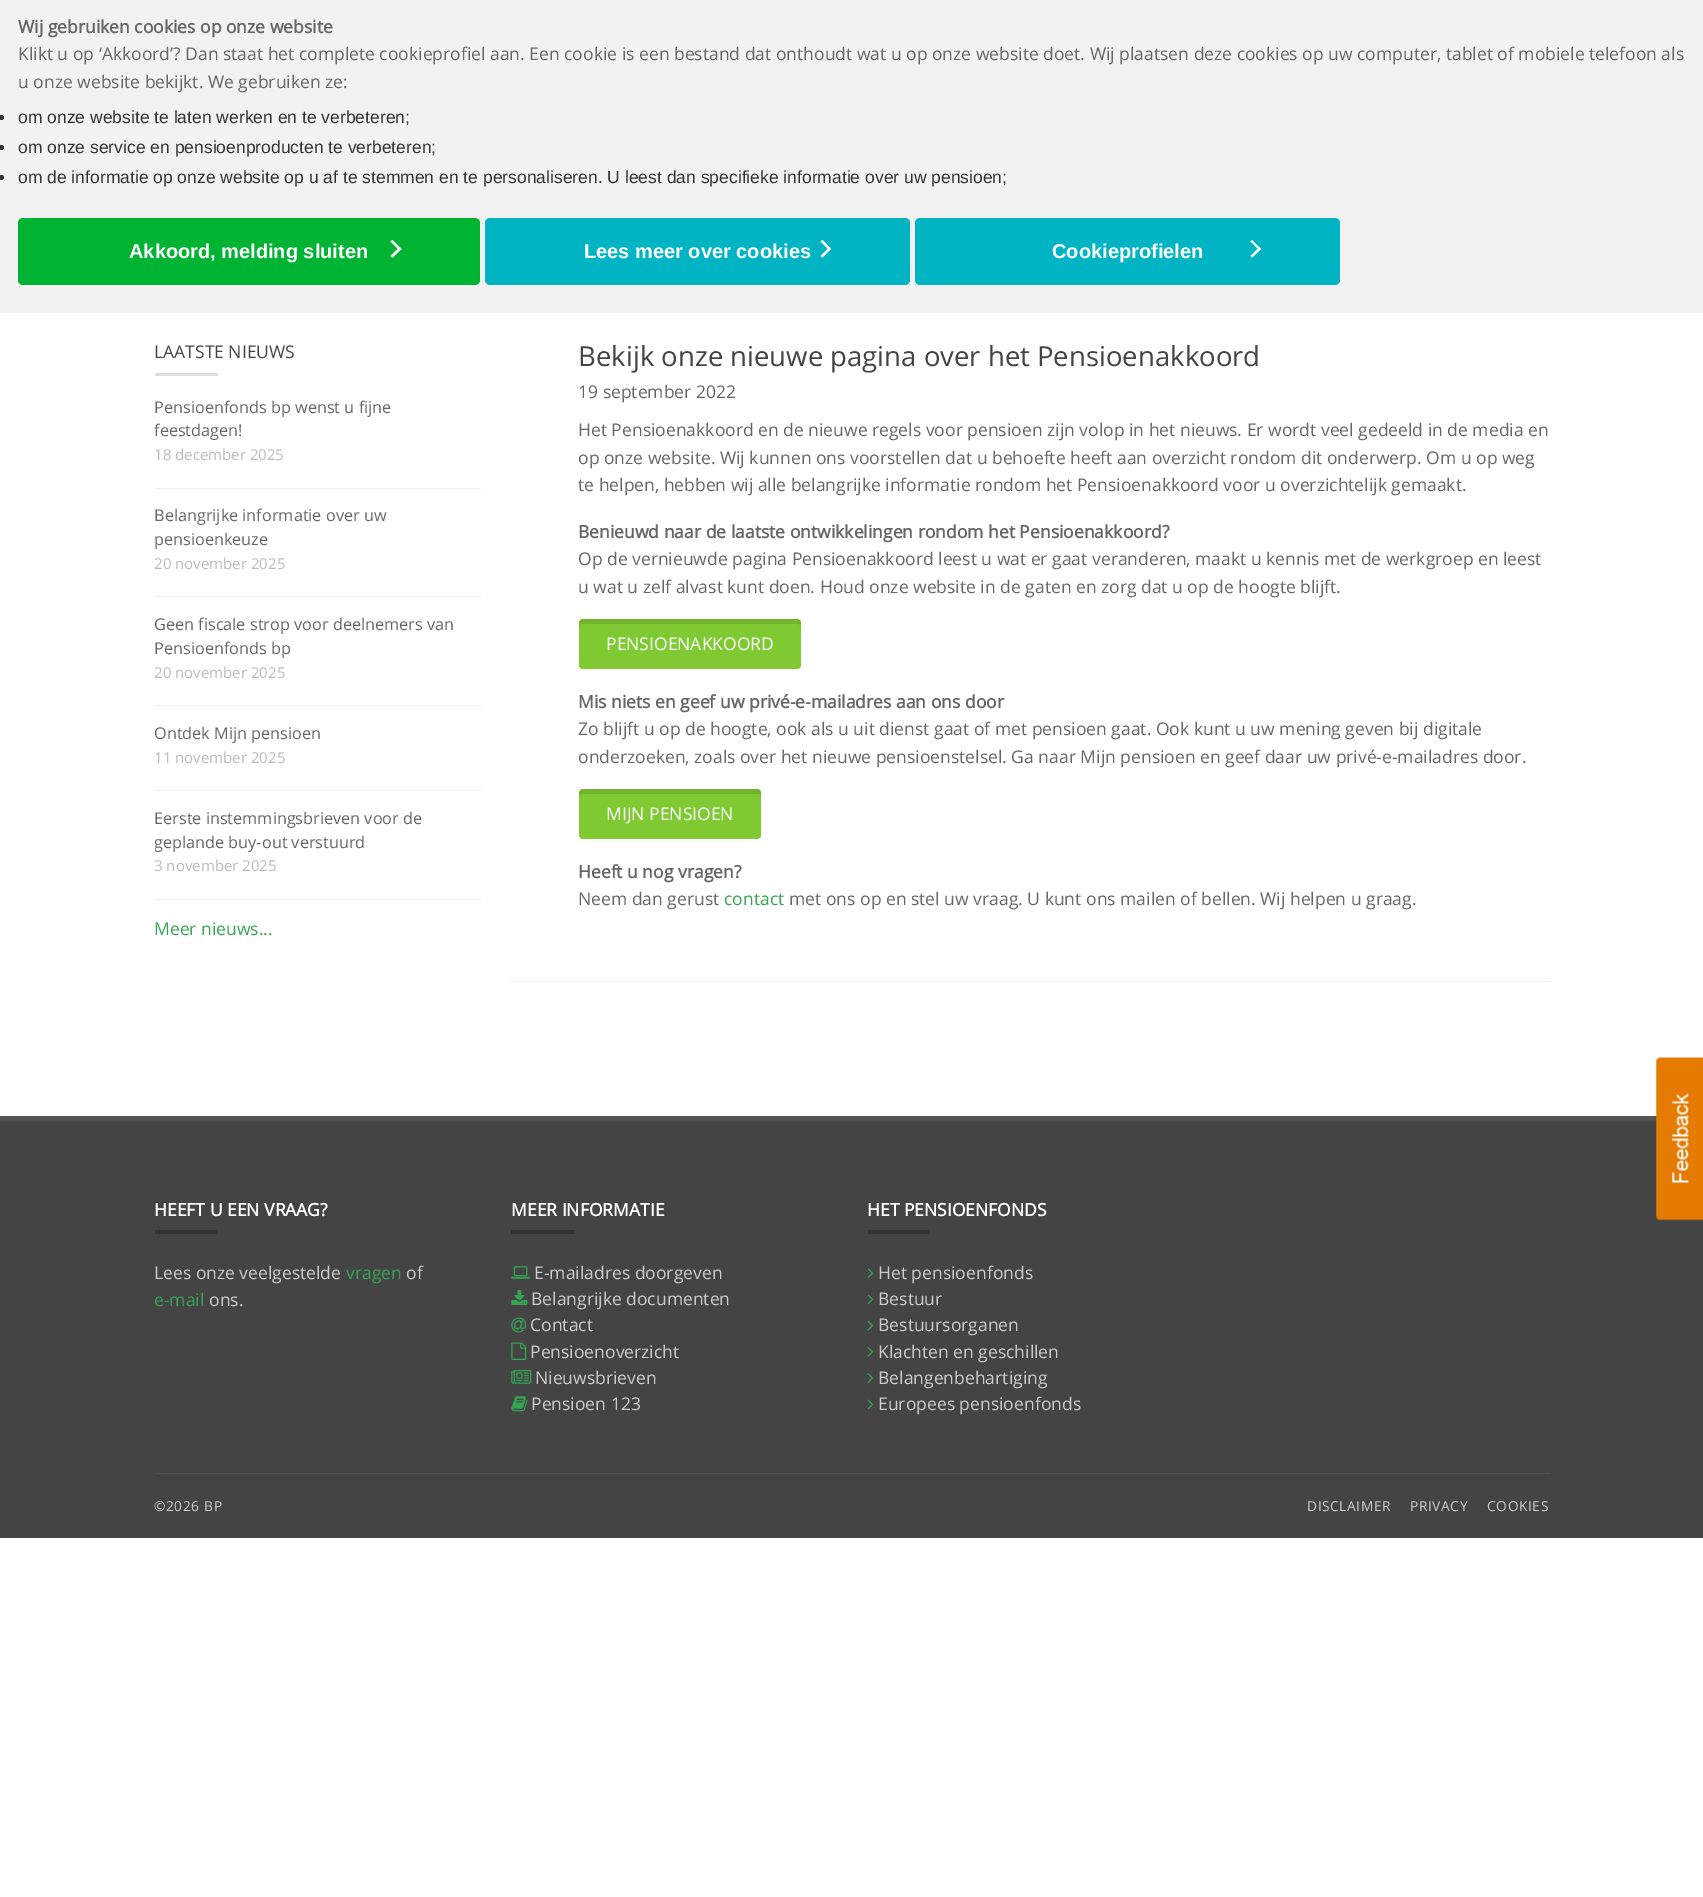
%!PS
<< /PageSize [1703 1897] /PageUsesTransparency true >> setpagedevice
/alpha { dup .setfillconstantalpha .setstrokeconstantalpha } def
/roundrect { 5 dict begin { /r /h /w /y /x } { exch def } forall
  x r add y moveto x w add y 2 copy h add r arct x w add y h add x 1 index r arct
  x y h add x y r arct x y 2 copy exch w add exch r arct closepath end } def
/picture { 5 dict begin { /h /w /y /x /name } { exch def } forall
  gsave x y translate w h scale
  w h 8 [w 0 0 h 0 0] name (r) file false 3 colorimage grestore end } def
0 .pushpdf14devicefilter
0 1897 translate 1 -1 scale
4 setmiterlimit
1 setgray
0 0 1703 1897 rectfill
0.949 setgray
0 0 1703 313 rectfill
/OpenSans-Bold [17.5 0 0 -17.5 0 0] selectfont
0.4 setgray
18 33 moveto (Wij gebruiken cookies op onze website) show
/OpenSans-Regular [17.5 0 0 -17.5 0 0] selectfont
18 60 moveto (Klikt u op ‘Akkoord’? Dan staat het complete cookieprofiel aan. Een cookie is een bestand dat onthoudt wat u op onze website doet. Wij plaatsen deze cookies op uw computer, tablet of mobiele telefoon als) show
18 88 moveto (u onze website bekijkt. We gebruiken ze:) show
0.2 setgray
newpath 1.5 117.5 2.5 0 360 arc closepath fill
/LiberationSans-Regular [17.5 0 0 -17.5 0 0] selectfont
18 123 moveto (om onze website te laten werken en te verbeteren;) show
newpath 1.5 147.5 2.5 0 360 arc closepath fill
18 153 moveto (om onze service en pensioenproducten te verbeteren;) show
newpath 1.5 177.5 2.5 0 360 arc closepath fill
18 183 moveto (om de informatie op onze website op u af te stemmen en te personaliseren. U leest dan specifieke informatie over uw pensioen;) show
0 0.702 0.196 setrgbcolor
18 218 462 67 5 roundrect fill
/LiberationSans-Bold [20 0 0 -20 0 0] selectfont
1 setgray
129 258 moveto (Akkoord, melding sluiten) show
newpath 392.5 240 moveto 401.5 249 lineto 399.5 250.5 lineto 390.5 241.5 lineto closepath fill
newpath 399.5 247 moveto 401.5 249 lineto 392.5 257.5 lineto 390.5 256 lineto closepath fill
0 0.706 0.765 setrgbcolor
485 218 425 67 5 roundrect fill
1 setgray
584 258 moveto (Lees meer over cookies) show
newpath 822.5 240 moveto 831 249 lineto 829.5 250.5 lineto 820.5 241.5 lineto closepath fill
newpath 829.5 247 moveto 831 249 lineto 822.5 257.5 lineto 820.5 256 lineto closepath fill
0 0.706 0.765 setrgbcolor
915 218 425 67 5 roundrect fill
1 setgray
1052 258 moveto (Cookieprofielen) show
newpath 1252 240 moveto 1261 249 lineto 1259.5 250.5 lineto 1250.5 241.5 lineto closepath fill
newpath 1259.5 247 moveto 1261 249 lineto 1252 257.5 lineto 1250.5 256 lineto closepath fill
/OpenSans-Regular [17.5 0 0 -17.5 0 0] selectfont
0.267 setgray
154 358 moveto (LAATSTE NIEUWS) show
0.867 setgray
155 373 63 3 rectfill
0.933 setgray
155 488 326 1 rectfill
/OpenSans-Regular [16.25 0 0 -16.25 0 0] selectfont
0.4 setgray
154 413 moveto (Pensioenfonds bp wenst u fijne) show
154 436 moveto (feestdagen!) show
/OpenSans-Regular [15 0 0 -15 0 0] selectfont
0.733 setgray
154 460 moveto (18 december 2025) show
0.933 setgray
155 596 326 1 rectfill
/OpenSans-Regular [16.25 0 0 -16.25 0 0] selectfont
0.4 setgray
154 521 moveto (Belangrijke informatie over uw) show
154 545 moveto (pensioenkeuze) show
/OpenSans-Regular [15 0 0 -15 0 0] selectfont
0.733 setgray
154 569 moveto (20 november 2025) show
0.933 setgray
155 705 326 1 rectfill
/OpenSans-Regular [16.25 0 0 -16.25 0 0] selectfont
0.4 setgray
154 630 moveto (Geen fiscale strop voor deelnemers van) show
154 654 moveto (Pensioenfonds bp) show
/OpenSans-Regular [15 0 0 -15 0 0] selectfont
0.733 setgray
154 678 moveto (20 november 2025) show
0.933 setgray
155 790 326 1 rectfill
/OpenSans-Regular [16.25 0 0 -16.25 0 0] selectfont
0.4 setgray
154 739 moveto (Ontdek Mijn pensioen) show
/OpenSans-Regular [15 0 0 -15 0 0] selectfont
0.733 setgray
154 763 moveto (11 november 2025) show
0.933 setgray
155 899 326 1 rectfill
/OpenSans-Regular [16.25 0 0 -16.25 0 0] selectfont
0.4 setgray
154 824 moveto (Eerste instemmingsbrieven voor de) show
gsave
155 338 326 603 rectclip
154 848 moveto (geplande buy-out verstuurd) show
grestore
/OpenSans-Regular [15 0 0 -15 0 0] selectfont
0.733 setgray
154 871 moveto (3 november 2025) show
/OpenSans-Regular [17.5 0 0 -17.5 0 0] selectfont
0.208 0.647 0.318 setrgbcolor
154 935 moveto (Meer nieuws...) show
0.933 setgray
511 981 1039 1 rectfill
/OpenSans-Regular [27.5 0 0 -27.5 0 0] selectfont
0.267 setgray
578 366 moveto (Bekijk onze nieuwe pagina over het Pensioenakkoord) show
/OpenSans-Regular [17.5 0 0 -17.5 0 0] selectfont
0.4 setgray
578 398 moveto (19 september 2022) show
578 436 moveto (Het Pensioenakkoord en de nieuwe regels voor pensioen zijn volop in het nieuws. Er wordt veel gedeeld in de media en) show
578 464 moveto (op onze website. Wij kunnen ons voorstellen dat u behoefte heeft aan overzicht rondom dit onderwerp. Om u op weg) show
578 491 moveto (te helpen, hebben wij alle belangrijke informatie rondom het Pensioenakkoord voor u overzichtelijk gemaakt.) show
/OpenSans-Bold [17.5 0 0 -17.5 0 0] selectfont
578 538 moveto (Benieuwd naar de laatste ontwikkelingen rondom het Pensioenakkoord?) show
/OpenSans-Regular [17.5 0 0 -17.5 0 0] selectfont
578 565 moveto (Op de vernieuwde pagina Pensioenakkoord leest u wat er gaat veranderen, maakt u kennis met de werkgroep en leest) show
578 593 moveto (u wat u zelf alvast kunt doen. Houd onze website in de gaten en zorg dat u op de hoogte blijft.) show
0.498 0.792 0.196 setrgbcolor
579 619 222 50 4 roundrect fill
0.1 alpha
0 setgray
newpath 582 624 moveto 798 624 lineto 800 624 801 625 801 628 curveto 801 623 lineto 801 621 799 619 797 619 curveto 583 619 lineto 581 619 579 621 579 623 curveto 579 628 lineto 579 625 580 624 582 624 curveto closepath fill
1 alpha
1 setgray
606 650 moveto (PENSIOENAKKOORD) show
/OpenSans-Bold [17.5 0 0 -17.5 0 0] selectfont
0.4 setgray
578 708 moveto (Mis niets en geef uw privé-e-mailadres aan ons door) show
/OpenSans-Regular [17.5 0 0 -17.5 0 0] selectfont
578 735 moveto (Zo blijft u op de hoogte, ook als u uit dienst gaat of met pensioen gaat. Ook kunt u uw mening geven bij digitale) show
578 763 moveto (onderzoeken, zoals over het nieuwe pensioenstelsel. Ga naar Mijn pensioen en geef daar uw privé-e-mailadres door.) show
0.498 0.792 0.196 setrgbcolor
579 789 182 50 4 roundrect fill
0.1 alpha
0 setgray
newpath 582 794 moveto 758 794 lineto 760 794 761 795 761 798 curveto 761 793 lineto 761 791 759 789 757 789 curveto 583 789 lineto 581 789 579 791 579 793 curveto 579 798 lineto 579 795 580 794 582 794 curveto closepath fill
1 alpha
1 setgray
606 820 moveto (MIJN PENSIOEN) show
/OpenSans-Bold [17.5 0 0 -17.5 0 0] selectfont
0.4 setgray
578 878 moveto (Heeft u nog vragen?) show
/OpenSans-Regular [17.5 0 0 -17.5 0 0] selectfont
578 905 moveto (Neem dan gerust) show
0.208 0.647 0.318 setrgbcolor
724 905 moveto (contact) show
0.4 setgray
789 905 moveto (met ons op en stel uw vraag. U kunt ons mailen of bellen. Wij helpen u graag.) show
0.267 setgray
0 1121 1703 417 rectfill
0.333 setgray
0 1116 1657 5 rectfill
/OpenSans-Bold [17.5 0 0 -17.5 0 0] selectfont
1 setgray
154 1216 moveto (HEEFT U EEN VRAAG?) show
0.2 setgray
155 1230 63 4 rectfill
/OpenSans-Regular [17.5 0 0 -17.5 0 0] selectfont
0.8 setgray
154 1279 moveto (Lees onze veelgestelde) show
0.208 0.647 0.318 setrgbcolor
346 1279 moveto (vragen) show
0.8 setgray
406 1279 moveto (of) show
0.208 0.647 0.318 setrgbcolor
154 1306 moveto (e-mail) show
0.8 setgray
209 1306 moveto (ons.) show
/OpenSans-Bold [17.5 0 0 -17.5 0 0] selectfont
1 setgray
511 1216 moveto (MEER INFORMATIE) show
0.2 setgray
511 1230 63 4 rectfill
(img1.rgb) 511 1266 19 13 picture
/OpenSans-Regular [17.5 0 0 -17.5 0 0] selectfont
0.8 setgray
534 1279 moveto (E-mailadres doorgeven) show
(img2.rgb) 511 1290 17 15 picture
531 1305 moveto (Belangrijke documenten) show
(img3.rgb) 511 1317 16 16 picture
530 1331 moveto (Contact) show
(img4.rgb) 511 1342 16 18 picture
530 1358 moveto (Pensioenoverzicht) show
(img5.rgb) 511 1370 21 14 picture
535 1384 moveto (Nieuwsbrieven) show
(img6.rgb) 511 1396 17 16 picture
531 1410 moveto (Pensioen 123) show
/OpenSans-Bold [17.5 0 0 -17.5 0 0] selectfont
1 setgray
867 1216 moveto (HET PENSIOENFONDS) show
0.2 setgray
868 1230 62 4 rectfill
(img7.rgb) 867 1268 7 10 picture
/OpenSans-Regular [17.5 0 0 -17.5 0 0] selectfont
0.8 setgray
878 1279 moveto (Het pensioenfonds) show
(img8.rgb) 867 1294 7 11 picture
878 1305 moveto (Bestuur) show
(img9.rgb) 867 1320 7 11 picture
878 1331 moveto (Bestuursorganen) show
(img10.rgb) 867 1347 7 10 picture
878 1358 moveto (Klachten en geschillen) show
(img7.rgb) 867 1373 7 10 picture
878 1384 moveto (Belangenbehartiging) show
(img8.rgb) 867 1399 7 11 picture
878 1410 moveto (Europees pensioenfonds) show
0.31 setgray
155 1473 1395 1 rectfill
/OpenSans-Regular [13.75 0 0 -13.75 0 0] selectfont
0.8 setgray
154 1511 moveto 0.6 0 (©2026 BP) ashow
1307 1511 moveto 0.6 0 (DISCLAIMER) ashow
1410 1511 moveto 0.6 0 (PRIVACY) ashow
1487 1511 moveto 0.6 0 (COOKIES) ashow
(img11.rgb) 1656 1057 47 164 picture
.poppdf14devicefilter showpage
